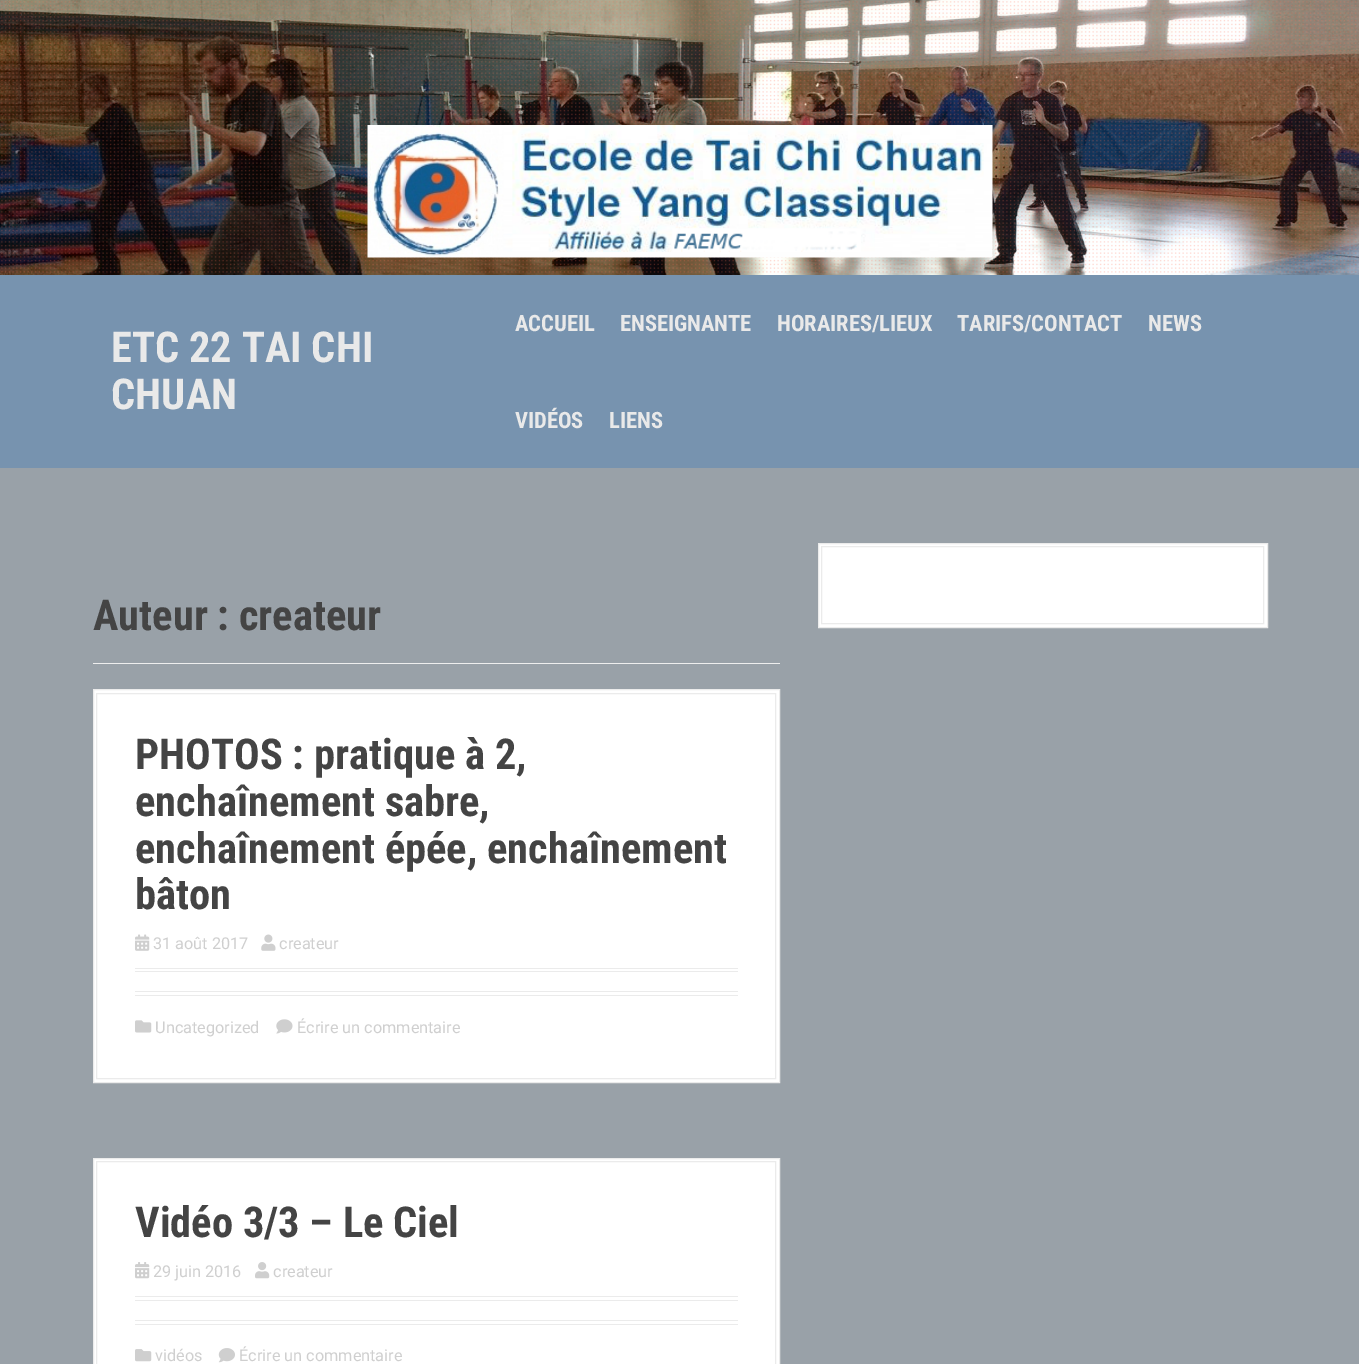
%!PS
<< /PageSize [1359 1364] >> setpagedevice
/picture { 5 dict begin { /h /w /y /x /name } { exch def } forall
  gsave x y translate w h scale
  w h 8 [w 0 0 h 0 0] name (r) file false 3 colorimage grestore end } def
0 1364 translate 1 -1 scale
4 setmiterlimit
0.6 0.631 0.659 setrgbcolor
0 0 1359 1364 rectfill
(img1.rgb) 0 0 1359 275 picture
(img2.rgb) 1 1 1358 272 picture
(img3.rgb) 367 125 626 133 picture
0.467 0.576 0.686 setrgbcolor
0 275 1359 193 rectfill
/RobotoCondensed-Bold [42.5 0 0 -42.5 0 0] selectfont
0.914 setgray
111 362 moveto (ETC 22 TAI CHI) show
111 409 moveto (CHUAN) show
/RobotoCondensed-Bold [22.5 0 0 -22.5 0 0] selectfont
515 331 moveto (ACCUEIL) show
620 331 moveto (ENSEIGNANTE) show
777 331 moveto (HORAIRES/LIEUX) show
957 331 moveto (TARIFS/CONTACT) show
1148 331 moveto (NEWS) show
515 428 moveto (VIDÉOS) show
609 428 moveto (LIENS) show
1 setgray
newpath 818.5 543.5 moveto 1267.5 543.5 lineto 1267.5 627.5 lineto 818.5 627.5 lineto closepath gsave fill grestore
0.922 setgray
stroke
821.5 546.5 442 77 rectstroke
0.933 setgray
93 663 687 1 rectfill
/RobotoCondensed-Bold [42.5 0 0 -42.5 0 0] selectfont
0.267 setgray
93 630 moveto (Auteur : createur) show
1 setgray
newpath 93.5 689.5 moveto 779.5 689.5 lineto 779.5 1082.5 lineto 93.5 1082.5 lineto closepath gsave fill grestore
0.922 setgray
stroke
96.5 693.5 679 385 rectstroke
135 968 603 1 rectfill
135 971 603 1 rectfill
0.267 setgray
135 769 moveto (PHOTOS : pratique à 2,) show
135 816 moveto (enchaînement sabre,) show
135 863 moveto (enchaînement épée, enchaînement) show
135 909 moveto (bâton) show
(img4.rgb) 135 934 15 17 picture
/Roboto-Regular [16.25 0 0 -16.25 0 0] selectfont
0.812 setgray
153 949 moveto (31 août 2017) show
(img5.rgb) 261 934 15 17 picture
279 949 moveto (createur) show
0.922 setgray
135 991 603 1 rectfill
135 995 603 1 rectfill
(img6.rgb) 135 1020 17 13 picture
0.812 setgray
155 1033 moveto (Uncategorized) show
(img7.rgb) 276 1019 17 15 picture
297 1033 moveto (Écrire un commentaire) show
1 setgray
newpath 93.5 1158.5 moveto 779.5 1158.5 lineto 779.5 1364.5 lineto 93.5 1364.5 lineto closepath gsave fill grestore
0.922 setgray
stroke
96.5 1161.5 679 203 rectstroke
135 1296 603 1 rectfill
135 1300 603 1 rectfill
/RobotoCondensed-Bold [42.5 0 0 -42.5 0 0] selectfont
0.267 setgray
135 1237 moveto (Vidéo 3/3 – Le Ciel) show
(img8.rgb) 135 1262 15 17 picture
/Roboto-Regular [16.25 0 0 -16.25 0 0] selectfont
0.812 setgray
153 1277 moveto (29 juin 2016) show
(img9.rgb) 255 1262 15 17 picture
273 1277 moveto (createur) show
0.922 setgray
135 1320 603 1 rectfill
135 1324 603 1 rectfill
(img10.rgb) 135 1349 17 13 picture
0.812 setgray
155 1361 moveto (vidéos) show
(img11.rgb) 218 1348 17 15 picture
239 1361 moveto (Écrire un commentaire) show
showpage
